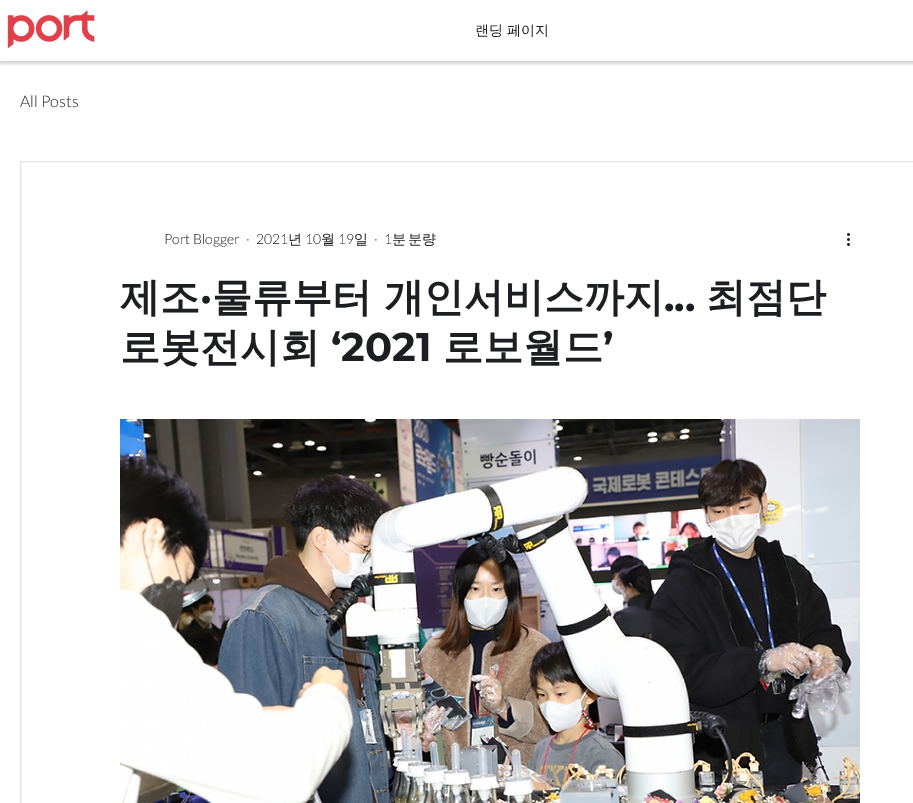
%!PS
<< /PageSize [913 803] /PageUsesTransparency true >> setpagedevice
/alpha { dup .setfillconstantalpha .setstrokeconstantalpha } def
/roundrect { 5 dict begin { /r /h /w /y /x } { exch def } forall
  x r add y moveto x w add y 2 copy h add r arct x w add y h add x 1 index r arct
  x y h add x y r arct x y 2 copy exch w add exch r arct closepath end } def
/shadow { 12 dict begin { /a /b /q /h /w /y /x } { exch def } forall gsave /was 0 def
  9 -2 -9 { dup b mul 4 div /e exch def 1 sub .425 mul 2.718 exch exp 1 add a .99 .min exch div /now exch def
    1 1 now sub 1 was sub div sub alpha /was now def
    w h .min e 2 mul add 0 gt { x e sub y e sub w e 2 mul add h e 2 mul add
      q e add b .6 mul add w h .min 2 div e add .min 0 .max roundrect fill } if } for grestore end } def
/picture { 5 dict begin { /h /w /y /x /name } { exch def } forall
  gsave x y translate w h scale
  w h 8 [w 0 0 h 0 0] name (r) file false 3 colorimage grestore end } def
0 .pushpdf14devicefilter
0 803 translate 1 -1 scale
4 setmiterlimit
1 setgray
0 0 913 803 rectfill
gsave
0 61 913 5 rectclip
0 setgray
-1 0 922 63 0 2.5 0.22 shadow
grestore
(img1.rgb) 7 10 88 39 picture
/WenQuanYiZenHei-Medium [14 0 0 -14 0 0] selectfont
0.114 0.118 0.129 setrgbcolor
475 35 moveto (랜딩 페이지) show
/Lato-Light [16 0 0 -16 0 0] selectfont
20 107 moveto (All Posts) show
0.878 0.886 0.91 setrgbcolor
20.5 161.5 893 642 rectstroke
/Lato-Light [14 0 0 -14 0 0] selectfont
0.114 0.118 0.129 setrgbcolor
164 244 moveto (Port Blogger) show
246 244 moveto (·) show
256 244 moveto (2021) show
/WenQuanYiZenHei-Medium [14 0 0 -14 0 0] selectfont
288 244 moveto (년) show
/Lato-Light [14 0 0 -14 0 0] selectfont
305 244 moveto (10) show
/WenQuanYiZenHei-Medium [14 0 0 -14 0 0] selectfont
321 244 moveto (월) show
/Lato-Light [14 0 0 -14 0 0] selectfont
338 244 moveto (19) show
/WenQuanYiZenHei-Medium [14 0 0 -14 0 0] selectfont
354 244 moveto (일) show
/Lato-Light [14 0 0 -14 0 0] selectfont
374 244 moveto (·) show
384 244 moveto (1) show
/WenQuanYiZenHei-Medium [14 0 0 -14 0 0] selectfont
392 244 moveto -2 0 32 (분 분량) widthshow
(img2.rgb) 847 233 3 13 picture
/WenQuanYiZenHei-Bold [40 0 0 -40 0 0] selectfont
120 311 moveto (제조) show
/Montserrat-Bold [40 0 0 -40 0 0] selectfont
200 311 moveto (·) show
/WenQuanYiZenHei-Bold [40 0 0 -40 0 0] selectfont
212 311 moveto (물류부터 개인서비스까지) show
706 311 moveto (최점단) show
/Montserrat-Bold [40 0 0 -40 0 0] selectfont
664 311 moveto (...) show
/WenQuanYiZenHei-Bold [40 0 0 -40 0 0] selectfont
120 361 moveto (로봇전시회) show
/Montserrat-Bold [40 0 0 -40 0 0] selectfont
331 361 moveto (‘2021) show
/WenQuanYiZenHei-Bold [40 0 0 -40 0 0] selectfont
443 361 moveto (로보월드) show
/Montserrat-Bold [40 0 0 -40 0 0] selectfont
603 361 moveto (’) show
(img3.rgb) 120 419 740 384 picture
.poppdf14devicefilter showpage
